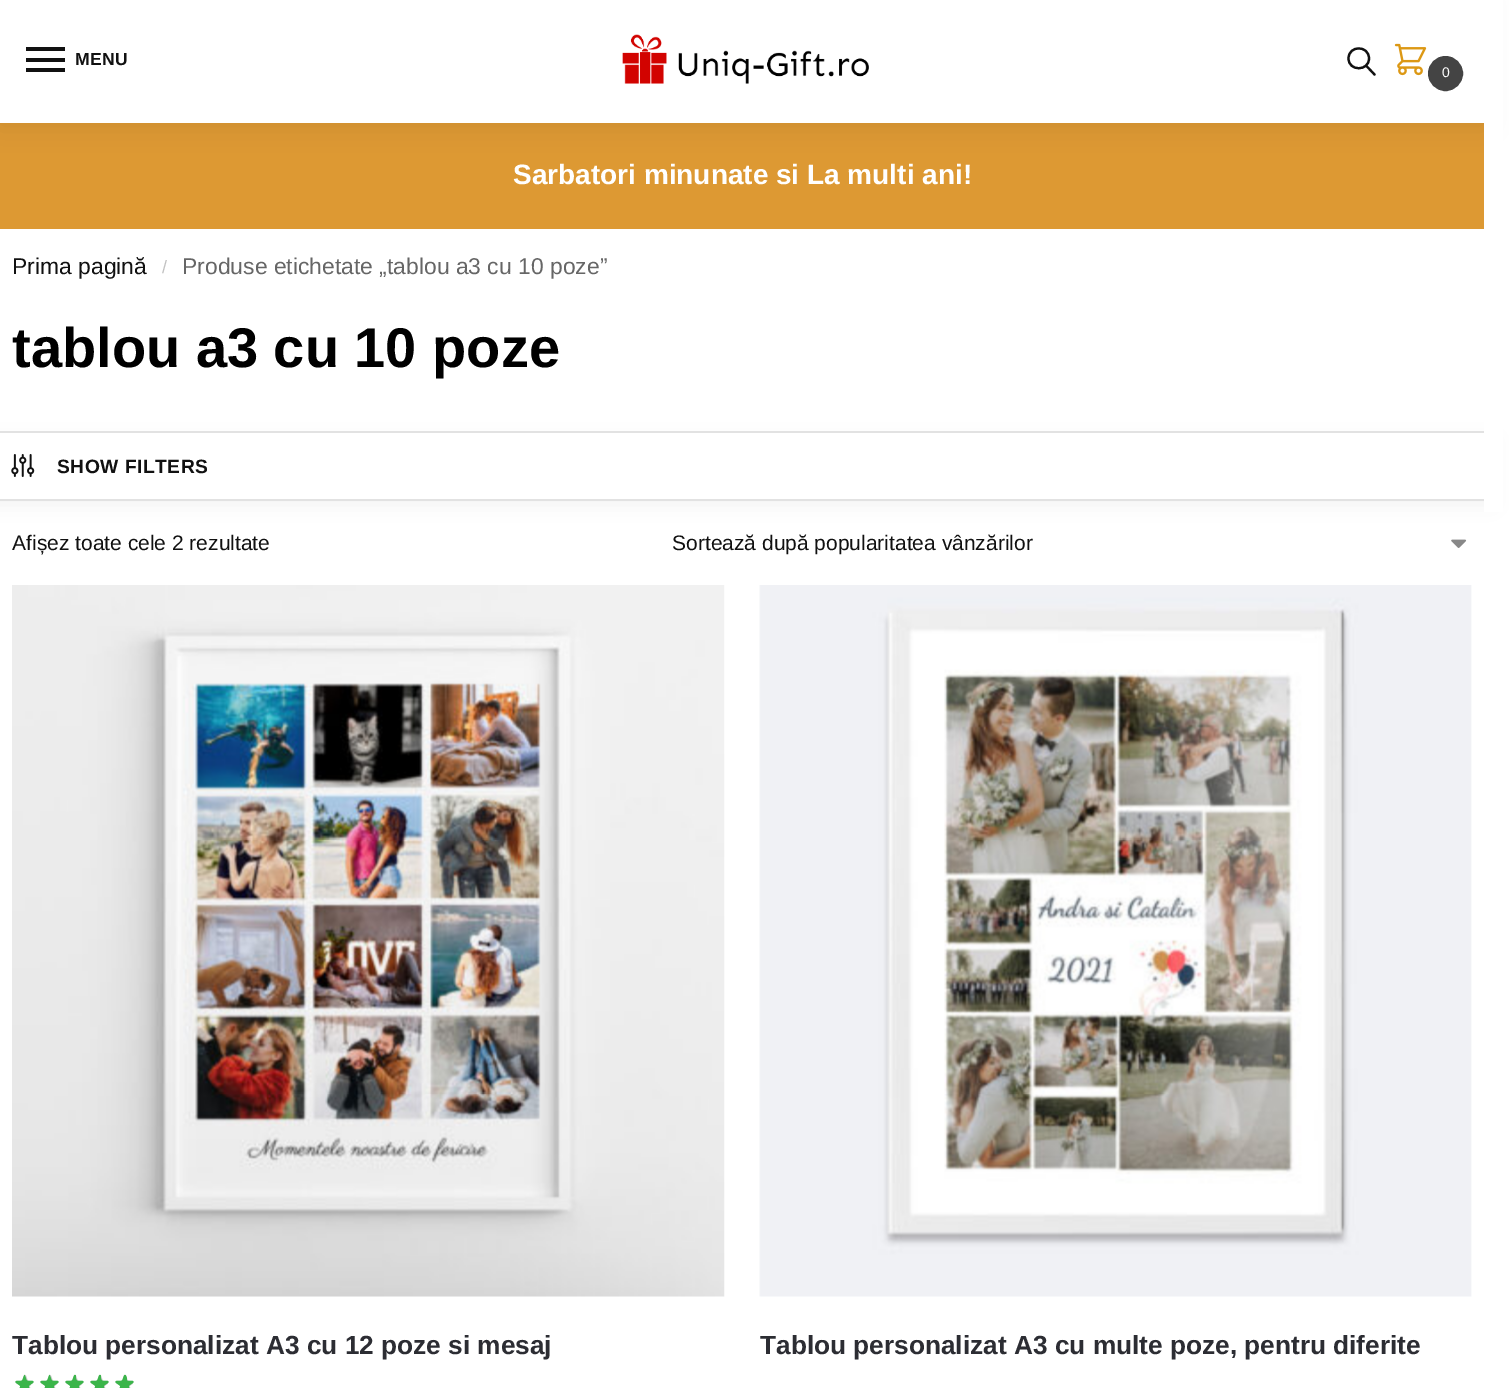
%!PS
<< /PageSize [1509 1388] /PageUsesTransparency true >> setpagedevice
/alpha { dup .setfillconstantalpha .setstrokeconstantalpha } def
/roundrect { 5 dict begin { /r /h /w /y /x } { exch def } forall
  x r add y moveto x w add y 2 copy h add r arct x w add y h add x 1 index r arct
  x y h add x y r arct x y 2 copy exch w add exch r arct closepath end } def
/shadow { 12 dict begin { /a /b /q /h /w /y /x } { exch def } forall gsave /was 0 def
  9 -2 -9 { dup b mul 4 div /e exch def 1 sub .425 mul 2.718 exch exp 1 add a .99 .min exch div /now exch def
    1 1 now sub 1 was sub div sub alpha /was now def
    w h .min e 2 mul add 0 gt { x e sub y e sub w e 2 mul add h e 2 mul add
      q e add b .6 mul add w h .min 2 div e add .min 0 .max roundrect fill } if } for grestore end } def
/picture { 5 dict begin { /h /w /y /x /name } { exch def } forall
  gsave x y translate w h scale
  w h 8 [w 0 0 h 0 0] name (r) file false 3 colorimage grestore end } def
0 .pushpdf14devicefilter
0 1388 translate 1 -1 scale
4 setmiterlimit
1 setgray
0 0 1509 1388 rectfill
0.867 0.6 0.2 setrgbcolor
0 123 1484 106 rectfill
0 setgray
0 2 1484 122 0 13 0.08 shadow
1 setgray
0 0 1484 123 rectfill
0.067 setgray
26 47 39 4 rectfill
26 58 39 4 rectfill
/LiberationSans-Bold [17.5 0 0 -17.5 0 0] selectfont
75 65 moveto 0.5 0 (MENU) ashow
26 68 39 4 rectfill
(img1.rgb) 622 34 247 50 picture
2.2 setlinewidth
1 setlinecap
1 setlinejoin
newpath 1374.5 74.5 moveto 1366 65.5 lineto 1369 58.5 moveto 1369 71.5 1348.5 71.5 1348.5 58.5 curveto 1348.5 45 1369 45 1369 58.5 curveto closepath stroke
(img2.rgb) 1394 43 33 33 picture
0.267 setgray
newpath 1445.5 73.5 16.5 0 360 arc closepath gsave fill grestore
2 setlinewidth
0 setlinecap
0 setlinejoin
stroke
/LiberationSans-Regular [14 0 0 -14 0 0] selectfont
1 setgray
1442 77 moveto (0) show
0 setgray
-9 441 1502 63 0 10.5 0.06 shadow
1 setgray
1484 0 19 512 rectfill
/LiberationSans-Bold [28 0 0 -28 0 0] selectfont
513 184 moveto (Sarbatori minunate si La multi ani!) show
/LiberationSans-Regular [22.9 0 0 -22.9 0 0] selectfont
0.067 setgray
12 274 moveto (Prima pagină) show
/LiberationSans-Regular [18 0 0 -18 0 0] selectfont
0.761 setgray
162 273 moveto (/) show
/LiberationSans-Regular [22.9 0 0 -22.9 0 0] selectfont
0.4 setgray
182 274 moveto (Produse etichetate „tablou a3 cu 10 poze”) show
/LiberationSans-Bold [56 0 0 -56 0 0] selectfont
0 setgray
12 367 moveto (tablou a3 cu 10 poze) show
1 setgray
0 433 1484 66 rectfill
0.886 setgray
0 431 1484 2 rectfill
0 499 1484 2 rectfill
(img3.rgb) 11 454 24 23 picture
/LiberationSans-Bold [19.25 0 0 -19.25 0 0] selectfont
0.067 setgray
57 473 moveto 0.5 0 (SHOW FILTERS) ashow
/LiberationSans-Regular [21 0 0 -21 0 0] selectfont
12 550 moveto (Afișez toate cele 2 rezultate) show
(img4.rgb) 1451 539 16 9 picture
672 550 moveto (Sortează după popularitatea vânzărilor) show
(img5.rgb) 12 585 713 712 picture
/LiberationSans-Bold [26.25 0 0 -26.25 0 0] selectfont
0.173 0.176 0.2 setrgbcolor
12 1354 moveto (Tablou personalizat A3 cu 12 poze si mesaj) show
(img6.rgb) 15 1374 119 14 picture
(img7.rgb) 15 1374 119 14 picture
(img8.rgb) 759 585 713 712 picture
760 1354 moveto (Tablou personalizat A3 cu multe poze, pentru diferite) show
.poppdf14devicefilter showpage
